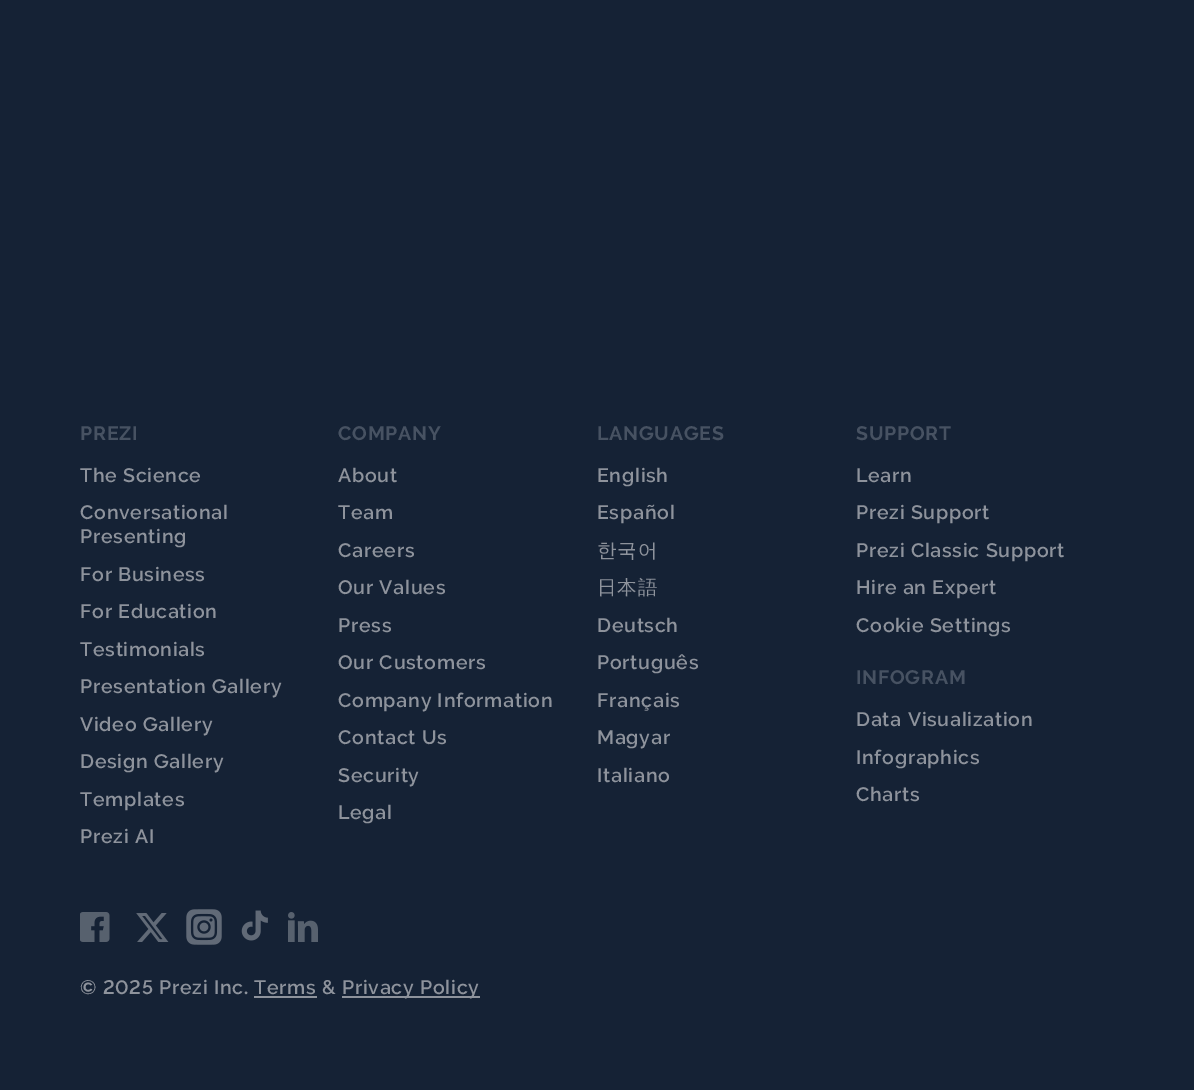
%!PS
<< /PageSize [1194 1090] >> setpagedevice
/picture { 5 dict begin { /h /w /y /x /name } { exch def } forall
  gsave x y translate w h scale
  w h 8 [w 0 0 h 0 0] name (r) file false 3 colorimage grestore end } def
0 1090 translate 1 -1 scale
4 setmiterlimit
0.082 0.133 0.208 setrgbcolor
0 0 1194 1090 rectfill
/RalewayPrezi-Bold [19.5 0 0 -19.5 0 0] selectfont
0.278 0.322 0.384 setrgbcolor
80 440 moveto 0.75 0 (PREZI) ashow
/RalewayPrezi-SemiBold [19.5 0 0 -19.5 0 0] selectfont
0.557 0.576 0.612 setrgbcolor
80 482 moveto 0.75 0 (The Science) ashow
80 519 moveto 0.75 0 (Conversational) ashow
80 543 moveto 0.75 0 (Presenting) ashow
80 581 moveto 0.75 0 (For Business) ashow
80 618 moveto 0.75 0 (For Education) ashow
80 656 moveto 0.75 0 (Testimonials) ashow
80 693 moveto 0.75 0 (Presentation Gallery) ashow
80 731 moveto 0.75 0 (Video Gallery) ashow
80 768 moveto 0.75 0 (Design Gallery) ashow
80 806 moveto 0.75 0 (Templates) ashow
80 843 moveto 0.75 0 (Prezi AI) ashow
/RalewayPrezi-Bold [19.5 0 0 -19.5 0 0] selectfont
0.278 0.322 0.384 setrgbcolor
338 440 moveto 0.75 0 (COMPANY) ashow
/RalewayPrezi-SemiBold [19.5 0 0 -19.5 0 0] selectfont
0.557 0.576 0.612 setrgbcolor
338 482 moveto 0.75 0 (About) ashow
338 519 moveto 0.75 0 (Team) ashow
338 557 moveto 0.75 0 (Careers) ashow
338 594 moveto 0.75 0 (Our Values) ashow
338 632 moveto 0.75 0 (Press) ashow
338 669 moveto 0.75 0 (Our Customers) ashow
338 707 moveto 0.75 0 (Company Information) ashow
338 744 moveto 0.75 0 (Contact Us) ashow
338 782 moveto 0.75 0 (Security) ashow
338 819 moveto 0.75 0 (Legal) ashow
/RalewayPrezi-Bold [19.5 0 0 -19.5 0 0] selectfont
0.278 0.322 0.384 setrgbcolor
597 440 moveto 0.75 0 (LANGUAGES) ashow
/RalewayPrezi-SemiBold [19.5 0 0 -19.5 0 0] selectfont
0.557 0.576 0.612 setrgbcolor
597 482 moveto 0.75 0 (English) ashow
597 519 moveto 0.75 0 (Español) ashow
/WenQuanYiZenHei-Medium [19.5 0 0 -19.5 0 0] selectfont
597 557 moveto 0.75 0 (한국어) ashow
597 594 moveto 0.75 0 (日本語) ashow
/RalewayPrezi-SemiBold [19.5 0 0 -19.5 0 0] selectfont
597 632 moveto 0.75 0 (Deutsch) ashow
597 669 moveto 0.75 0 (Português) ashow
597 707 moveto 0.75 0 (Français) ashow
597 744 moveto 0.75 0 (Magyar) ashow
597 782 moveto 0.75 0 (Italiano) ashow
/RalewayPrezi-Bold [19.5 0 0 -19.5 0 0] selectfont
0.278 0.322 0.384 setrgbcolor
856 440 moveto 0.75 0 (SUPPORT) ashow
/RalewayPrezi-SemiBold [19.5 0 0 -19.5 0 0] selectfont
0.557 0.576 0.612 setrgbcolor
856 482 moveto 0.75 0 (Learn) ashow
856 519 moveto 0.75 0 (Prezi Support) ashow
856 557 moveto 0.75 0 (Prezi Classic Support) ashow
856 594 moveto 0.75 0 (Hire an Expert) ashow
856 632 moveto 0.75 0 (Cookie Settings) ashow
/RalewayPrezi-Bold [19.5 0 0 -19.5 0 0] selectfont
0.278 0.322 0.384 setrgbcolor
856 684 moveto 0.75 0 (INFOGRAM) ashow
/RalewayPrezi-SemiBold [19.5 0 0 -19.5 0 0] selectfont
0.557 0.576 0.612 setrgbcolor
856 726 moveto 0.75 0 (Data Visualization) ashow
856 764 moveto 0.75 0 (Infographics) ashow
856 801 moveto 0.75 0 (Charts) ashow
(img1.rgb) 80 912 30 30 picture
(img2.rgb) 136 913 33 29 picture
(img3.rgb) 186 909 36 36 picture
(img4.rgb) 241 910 27 31 picture
(img5.rgb) 288 912 30 30 picture
80 994 moveto 0.75 0 (© 2025 Prezi Inc. Terms &) ashow
342 996 138 2 rectfill
342 994 moveto 0.75 0 (Privacy Policy) ashow
254 996 63 2 rectfill
showpage
